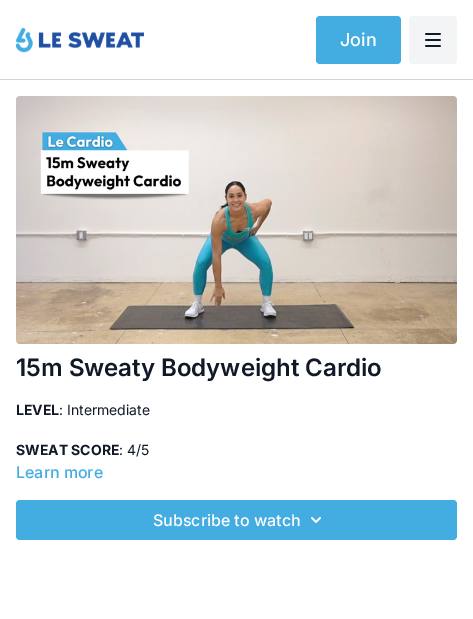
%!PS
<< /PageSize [473 619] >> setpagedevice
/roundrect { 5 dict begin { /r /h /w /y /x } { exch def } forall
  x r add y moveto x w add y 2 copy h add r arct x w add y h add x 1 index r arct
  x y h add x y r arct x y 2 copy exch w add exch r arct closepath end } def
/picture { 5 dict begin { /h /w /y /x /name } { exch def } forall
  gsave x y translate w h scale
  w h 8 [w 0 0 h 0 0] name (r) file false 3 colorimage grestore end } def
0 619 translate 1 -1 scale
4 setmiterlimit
1 setgray
0 0 473 619 rectfill
0.82 0.835 0.859 setrgbcolor
0 79 473 1 rectfill
(img1.rgb) 16 27 128 26 picture
0.263 0.678 0.886 setrgbcolor
316 16 85 48 4 roundrect fill
/Inter-Medium [18 0 0 -18 0 0] selectfont
1 setgray
340 46 moveto (Join) show
0.953 0.957 0.965 setrgbcolor
409 16 48 48 4 roundrect fill
(img2.rgb) 425 33 16 14 picture
(img3.rgb) 16 96 441 248 picture
/Inter-SemiBold [24 0 0 -24 0 0] selectfont
0.067 0.094 0.153 setrgbcolor
16 376 moveto (15m Sweaty Bodyweight Cardio) show
/Inter-Bold [14 0 0 -14 0 0] selectfont
16 415 moveto (LEVEL) show
/Inter-Regular [14 0 0 -14 0 0] selectfont
59 415 moveto (: Intermediate) show
/Inter-Bold [14 0 0 -14 0 0] selectfont
16 455 moveto (SWEAT SCORE) show
/Inter-Regular [14 0 0 -14 0 0] selectfont
119 455 moveto (: 4/5) show
/Inter-Medium [16 0 0 -16 0 0] selectfont
0.263 0.678 0.886 setrgbcolor
16 478 moveto (Learn more) show
16 500 441 40 4 roundrect fill
1 setgray
153 526 moveto (Subscribe to watch) show
(img4.rgb) 311 517 10 6 picture
showpage
